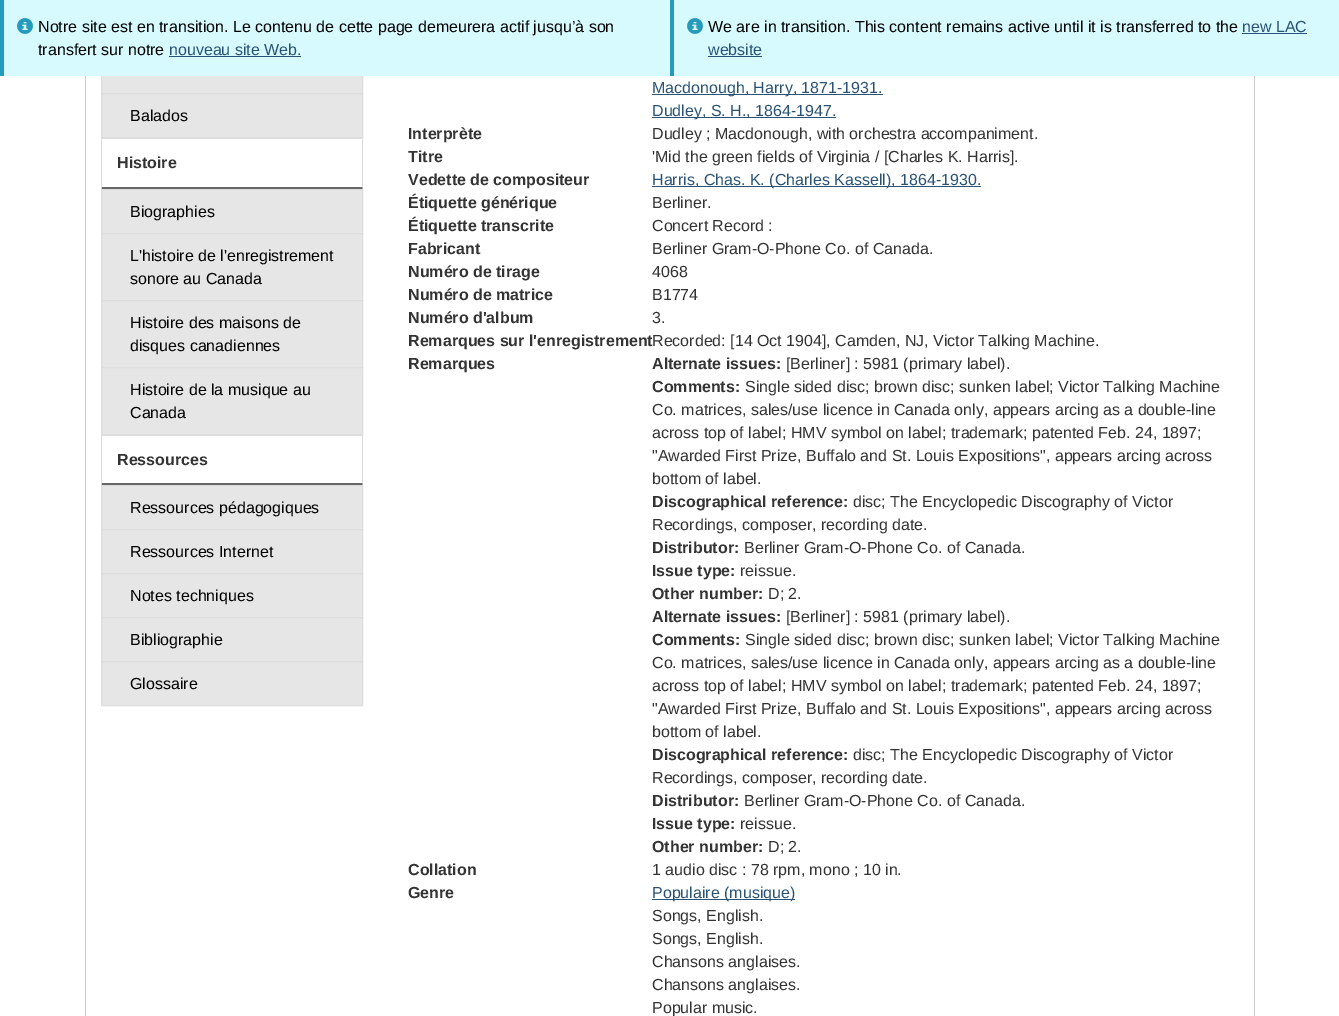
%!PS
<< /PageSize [1339 1016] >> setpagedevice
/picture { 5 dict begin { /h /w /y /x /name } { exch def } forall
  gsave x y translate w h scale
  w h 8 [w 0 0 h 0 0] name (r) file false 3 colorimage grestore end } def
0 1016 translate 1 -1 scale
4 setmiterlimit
1 setgray
0 0 1339 1016 rectfill
0.902 setgray
102 76 260 17 rectfill
0.867 setgray
101.5 49.5 261 44 rectstroke
0.843 0.98 1 setrgbcolor
4 0 666 76 rectfill
0.149 0.604 0.737 setrgbcolor
0 0 4 76 rectfill
(img1.rgb) 17 18 16 16 picture
/LiberationSans-Regular [16 0 0 -16 0 0] selectfont
0 setgray
38 32 moveto (Notre site est en transition. Le contenu de cette page demeurera actif jusqu’à son) show
38 55 moveto (transfert sur notre) show
0.161 0.325 0.463 setrgbcolor
169 55 moveto (nouveau site Web.) show
169 56 132 1 rectfill
0.843 0.98 1 setrgbcolor
674 0 665 76 rectfill
0.149 0.604 0.737 setrgbcolor
670 0 4 76 rectfill
(img1.rgb) 687 18 16 16 picture
0 setgray
708 32 moveto (We are in transition. This content remains active until it is transferred to the) show
0.161 0.325 0.463 setrgbcolor
1242 32 moveto (new LAC) show
1242 33 65 1 rectfill
708 55 moveto (website) show
708 56 54 1 rectfill
0.8 setgray
1254 76 1 940 rectfill
85 76 1 940 rectfill
0.902 setgray
newpath 101.5 93.5 moveto 362.5 93.5 lineto 362.5 137.5 lineto 101.5 137.5 lineto closepath gsave fill grestore
0.867 setgray
stroke
0 setgray
130 121 moveto (Balados) show
0.867 setgray
101 138 262 1 rectfill
newpath 363 138 moveto 363 190 lineto 362 187 lineto 362 139 lineto closepath fill
0.4 setgray
newpath 363 190 moveto 101 190 lineto 102 187 lineto 362 187 lineto closepath fill
0.867 setgray
newpath 101 190 moveto 101 138 lineto 102 139 lineto 102 187 lineto closepath fill
/LiberationSans-Bold [16 0 0 -16 0 0] selectfont
0.2 setgray
117 168 moveto (Histoire) show
0.902 setgray
newpath 101.5 189.5 moveto 362.5 189.5 lineto 362.5 233.5 lineto 101.5 233.5 lineto closepath gsave fill grestore
0.867 setgray
stroke
/LiberationSans-Regular [16 0 0 -16 0 0] selectfont
0 setgray
130 217 moveto (Biographies) show
0.902 setgray
newpath 101.5 233.5 moveto 362.5 233.5 lineto 362.5 300.5 lineto 101.5 300.5 lineto closepath gsave fill grestore
0.867 setgray
stroke
0 setgray
130 261 moveto (L'histoire de l'enregistrement) show
130 284 moveto (sonore au Canada) show
0.902 setgray
newpath 101.5 300.5 moveto 362.5 300.5 lineto 362.5 367.5 lineto 101.5 367.5 lineto closepath gsave fill grestore
0.867 setgray
stroke
0 setgray
130 328 moveto (Histoire des maisons de) show
130 351 moveto (disques canadiennes) show
0.902 setgray
newpath 101.5 367.5 moveto 362.5 367.5 lineto 362.5 434.5 lineto 101.5 434.5 lineto closepath gsave fill grestore
0.867 setgray
stroke
0 setgray
130 395 moveto (Histoire de la musique au) show
130 418 moveto (Canada) show
0.867 setgray
101 435 262 1 rectfill
newpath 363 435 moveto 363 486 lineto 362 483 lineto 362 436 lineto closepath fill
0.4 setgray
newpath 363 486 moveto 101 486 lineto 102 483 lineto 362 483 lineto closepath fill
0.867 setgray
newpath 101 486 moveto 101 435 lineto 102 436 lineto 102 483 lineto closepath fill
/LiberationSans-Bold [16 0 0 -16 0 0] selectfont
0.2 setgray
117 465 moveto (Ressources) show
0.902 setgray
newpath 101.5 485.5 moveto 362.5 485.5 lineto 362.5 529.5 lineto 101.5 529.5 lineto closepath gsave fill grestore
0.867 setgray
stroke
/LiberationSans-Regular [16 0 0 -16 0 0] selectfont
0 setgray
130 513 moveto (Ressources pédagogiques) show
0.902 setgray
newpath 101.5 529.5 moveto 362.5 529.5 lineto 362.5 573.5 lineto 101.5 573.5 lineto closepath gsave fill grestore
0.867 setgray
stroke
0 setgray
130 557 moveto (Ressources Internet) show
0.902 setgray
newpath 101.5 573.5 moveto 362.5 573.5 lineto 362.5 617.5 lineto 101.5 617.5 lineto closepath gsave fill grestore
0.867 setgray
stroke
0 setgray
130 601 moveto (Notes techniques) show
0.902 setgray
newpath 101.5 617.5 moveto 362.5 617.5 lineto 362.5 661.5 lineto 101.5 661.5 lineto closepath gsave fill grestore
0.867 setgray
stroke
0 setgray
130 645 moveto (Bibliographie) show
0.902 setgray
newpath 101.5 661.5 moveto 362.5 661.5 lineto 362.5 705.5 lineto 101.5 705.5 lineto closepath gsave fill grestore
0.867 setgray
stroke
0 setgray
130 689 moveto (Glossaire) show
0.161 0.325 0.463 setrgbcolor
652 94 231 1 rectfill
652 93 moveto (Macdonough, Harry, 1871-1931.) show
652 117 184 1 rectfill
652 116 moveto (Dudley, S. H., 1864-1947.) show
/LiberationSans-Bold [16 0 0 -16 0 0] selectfont
0.2 setgray
408 139 moveto (Interprète) show
/LiberationSans-Regular [16 0 0 -16 0 0] selectfont
652 139 moveto (Dudley ; Macdonough, with orchestra accompaniment.) show
/LiberationSans-Bold [16 0 0 -16 0 0] selectfont
408 162 moveto (Titre) show
/LiberationSans-Regular [16 0 0 -16 0 0] selectfont
652 162 moveto ('Mid the green fields of Virginia / [Charles K. Harris].) show
/LiberationSans-Bold [16 0 0 -16 0 0] selectfont
408 185 moveto (Vedette de compositeur) show
0.161 0.325 0.463 setrgbcolor
652 186 329 1 rectfill
/LiberationSans-Regular [16 0 0 -16 0 0] selectfont
652 185 moveto (Harris, Chas. K. \(Charles Kassell\), 1864-1930.) show
/LiberationSans-Bold [16 0 0 -16 0 0] selectfont
0.2 setgray
408 208 moveto (Étiquette générique) show
/LiberationSans-Regular [16 0 0 -16 0 0] selectfont
652 208 moveto (Berliner.) show
/LiberationSans-Bold [16 0 0 -16 0 0] selectfont
408 231 moveto (Étiquette transcrite) show
/LiberationSans-Regular [16 0 0 -16 0 0] selectfont
652 231 moveto (Concert Record :) show
/LiberationSans-Bold [16 0 0 -16 0 0] selectfont
408 254 moveto (Fabricant) show
/LiberationSans-Regular [16 0 0 -16 0 0] selectfont
652 254 moveto (Berliner Gram-O-Phone Co. of Canada.) show
/LiberationSans-Bold [16 0 0 -16 0 0] selectfont
408 277 moveto (Numéro de tirage) show
/LiberationSans-Regular [16 0 0 -16 0 0] selectfont
652 277 moveto (4068) show
/LiberationSans-Bold [16 0 0 -16 0 0] selectfont
408 300 moveto (Numéro de matrice) show
/LiberationSans-Regular [16 0 0 -16 0 0] selectfont
652 300 moveto (B1774) show
/LiberationSans-Bold [16 0 0 -16 0 0] selectfont
408 323 moveto (Numéro d'album) show
/LiberationSans-Regular [16 0 0 -16 0 0] selectfont
652 323 moveto (3.) show
/LiberationSans-Bold [16 0 0 -16 0 0] selectfont
408 346 moveto (Remarques sur l'enregistrement) show
/LiberationSans-Regular [16 0 0 -16 0 0] selectfont
652 346 moveto (Recorded: [14 Oct 1904], Camden, NJ, Victor Talking Machine.) show
/LiberationSans-Bold [16 0 0 -16 0 0] selectfont
408 369 moveto (Remarques) show
652 369 moveto (Alternate issues:) show
/LiberationSans-Regular [16 0 0 -16 0 0] selectfont
786 369 moveto ([Berliner] : 5981 \(primary label\).) show
/LiberationSans-Bold [16 0 0 -16 0 0] selectfont
652 392 moveto (Comments:) show
/LiberationSans-Regular [16 0 0 -16 0 0] selectfont
745 392 moveto (Single sided disc; brown disc; sunken label; Victor Talking Machine) show
652 415 moveto (Co. matrices, sales/use licence in Canada only, appears arcing as a double-line) show
652 438 moveto (across top of label; HMV symbol on label; trademark; patented Feb. 24, 1897;) show
652 461 moveto ("Awarded First Prize, Buffalo and St. Louis Expositions", appears arcing across) show
652 484 moveto (bottom of label.) show
/LiberationSans-Bold [16 0 0 -16 0 0] selectfont
652 507 moveto (Discographical reference:) show
/LiberationSans-Regular [16 0 0 -16 0 0] selectfont
853 507 moveto (disc; The Encyclopedic Discography of Victor) show
652 530 moveto (Recordings, composer, recording date.) show
/LiberationSans-Bold [16 0 0 -16 0 0] selectfont
652 553 moveto (Distributor:) show
/LiberationSans-Regular [16 0 0 -16 0 0] selectfont
744 553 moveto (Berliner Gram-O-Phone Co. of Canada.) show
/LiberationSans-Bold [16 0 0 -16 0 0] selectfont
652 576 moveto (Issue type:) show
/LiberationSans-Regular [16 0 0 -16 0 0] selectfont
740 576 moveto (reissue.) show
/LiberationSans-Bold [16 0 0 -16 0 0] selectfont
652 599 moveto (Other number:) show
/LiberationSans-Regular [16 0 0 -16 0 0] selectfont
768 599 moveto (D; 2.) show
/LiberationSans-Bold [16 0 0 -16 0 0] selectfont
652 622 moveto (Alternate issues:) show
/LiberationSans-Regular [16 0 0 -16 0 0] selectfont
786 622 moveto ([Berliner] : 5981 \(primary label\).) show
/LiberationSans-Bold [16 0 0 -16 0 0] selectfont
652 645 moveto (Comments:) show
/LiberationSans-Regular [16 0 0 -16 0 0] selectfont
745 645 moveto (Single sided disc; brown disc; sunken label; Victor Talking Machine) show
652 668 moveto (Co. matrices, sales/use licence in Canada only, appears arcing as a double-line) show
652 691 moveto (across top of label; HMV symbol on label; trademark; patented Feb. 24, 1897;) show
652 714 moveto ("Awarded First Prize, Buffalo and St. Louis Expositions", appears arcing across) show
652 737 moveto (bottom of label.) show
/LiberationSans-Bold [16 0 0 -16 0 0] selectfont
652 760 moveto (Discographical reference:) show
/LiberationSans-Regular [16 0 0 -16 0 0] selectfont
853 760 moveto (disc; The Encyclopedic Discography of Victor) show
652 783 moveto (Recordings, composer, recording date.) show
/LiberationSans-Bold [16 0 0 -16 0 0] selectfont
652 806 moveto (Distributor:) show
/LiberationSans-Regular [16 0 0 -16 0 0] selectfont
744 806 moveto (Berliner Gram-O-Phone Co. of Canada.) show
/LiberationSans-Bold [16 0 0 -16 0 0] selectfont
652 829 moveto (Issue type:) show
/LiberationSans-Regular [16 0 0 -16 0 0] selectfont
740 829 moveto (reissue.) show
/LiberationSans-Bold [16 0 0 -16 0 0] selectfont
652 852 moveto (Other number:) show
/LiberationSans-Regular [16 0 0 -16 0 0] selectfont
768 852 moveto (D; 2.) show
/LiberationSans-Bold [16 0 0 -16 0 0] selectfont
408 875 moveto (Collation) show
/LiberationSans-Regular [16 0 0 -16 0 0] selectfont
652 875 moveto (1 audio disc : 78 rpm, mono ; 10 in.) show
/LiberationSans-Bold [16 0 0 -16 0 0] selectfont
408 898 moveto (Genre) show
0.161 0.325 0.463 setrgbcolor
652 899 143 1 rectfill
/LiberationSans-Regular [16 0 0 -16 0 0] selectfont
652 898 moveto (Populaire \(musique\)) show
0.2 setgray
652 921 moveto (Songs, English.) show
652 944 moveto (Songs, English.) show
652 967 moveto (Chansons anglaises.) show
652 990 moveto (Chansons anglaises.) show
652 1013 moveto (Popular music.) show
showpage
